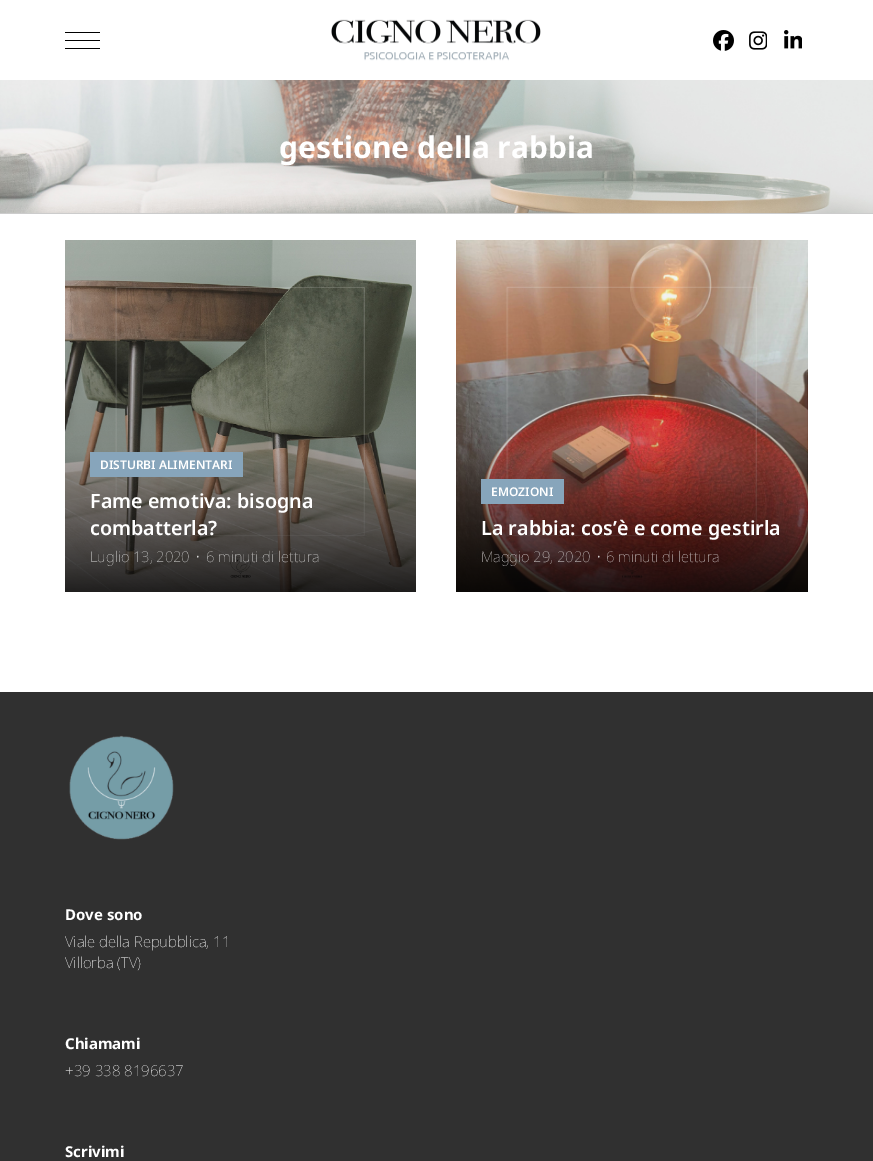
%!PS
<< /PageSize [873 1161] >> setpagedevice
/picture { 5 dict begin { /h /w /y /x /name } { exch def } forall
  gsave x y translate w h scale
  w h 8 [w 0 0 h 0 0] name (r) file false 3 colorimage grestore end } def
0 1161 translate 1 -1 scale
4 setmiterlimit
1 setgray
0 0 873 1161 rectfill
0 setgray
65 40 35 1 rectfill
65 32 35 1 rectfill
65 48 35 1 rectfill
(img1.rgb) 331 19 210 42 picture
(img2.rgb) 713 30 21 21 picture
(img3.rgb) 749 31 18 19 picture
(img4.rgb) 784 30 18 19 picture
(img5.rgb) 0 80 873 133 picture
0.8 setgray
0 213 873 1 rectfill
/NotoSans-Bold [30 0 0 -30 0 0] selectfont
1 setgray
279 158 moveto (gestione della rabbia) show
(img6.rgb) 65 240 351 352 picture
0.529 0.647 0.733 setrgbcolor
90 452 153 25 rectfill
/NotoSans-SemiBold [12 0 0 -12 0 0] selectfont
1 setgray
100 469 moveto (DISTURBI ALIMENTARI) show
/NotoSans-SemiBold [19.75 0 0 -19.75 0 0] selectfont
90 508 moveto (Fame emotiva: bisogna) show
90 535 moveto (combatterla?) show
/NotoSans-Thin [14.75 0 0 -14.75 0 0] selectfont
0.847 0.847 0.843 setrgbcolor
90 562 moveto (Luglio 13, 2020) show
195 562 moveto (•) show
206 562 moveto (6 minuti di lettura) show
(img7.rgb) 456 240 352 352 picture
0.529 0.647 0.733 setrgbcolor
481 479 83 25 rectfill
/NotoSans-SemiBold [12 0 0 -12 0 0] selectfont
1 setgray
491 496 moveto (EMOZIONI) show
/NotoSans-SemiBold [19.75 0 0 -19.75 0 0] selectfont
481 535 moveto (La rabbia: cos’è e come gestirla) show
/NotoSans-Thin [14.75 0 0 -14.75 0 0] selectfont
0.839 0.824 0.824 setrgbcolor
481 562 moveto (Maggio 29, 2020) show
596 562 moveto (•) show
606 562 moveto (6 minuti di lettura) show
0.188 setgray
0 692 873 469 rectfill
(img8.rgb) 69 735 105 105 picture
/NotoSans-Bold [15 0 0 -15 0 0] selectfont
1 setgray
65 920 moveto (Dove sono) show
/NotoSans-Thin [15 0 0 -15 0 0] selectfont
65 947 moveto (Viale della Repubblica, 11) show
65 968 moveto (Villorba \(TV\)) show
/NotoSans-Bold [15 0 0 -15 0 0] selectfont
65 1049 moveto (Chiamami) show
/NotoSans-Thin [15 0 0 -15 0 0] selectfont
65 1076 moveto (+39 338 8196637) show
/NotoSans-Bold [15 0 0 -15 0 0] selectfont
65 1157 moveto (Scrivimi) show
showpage
